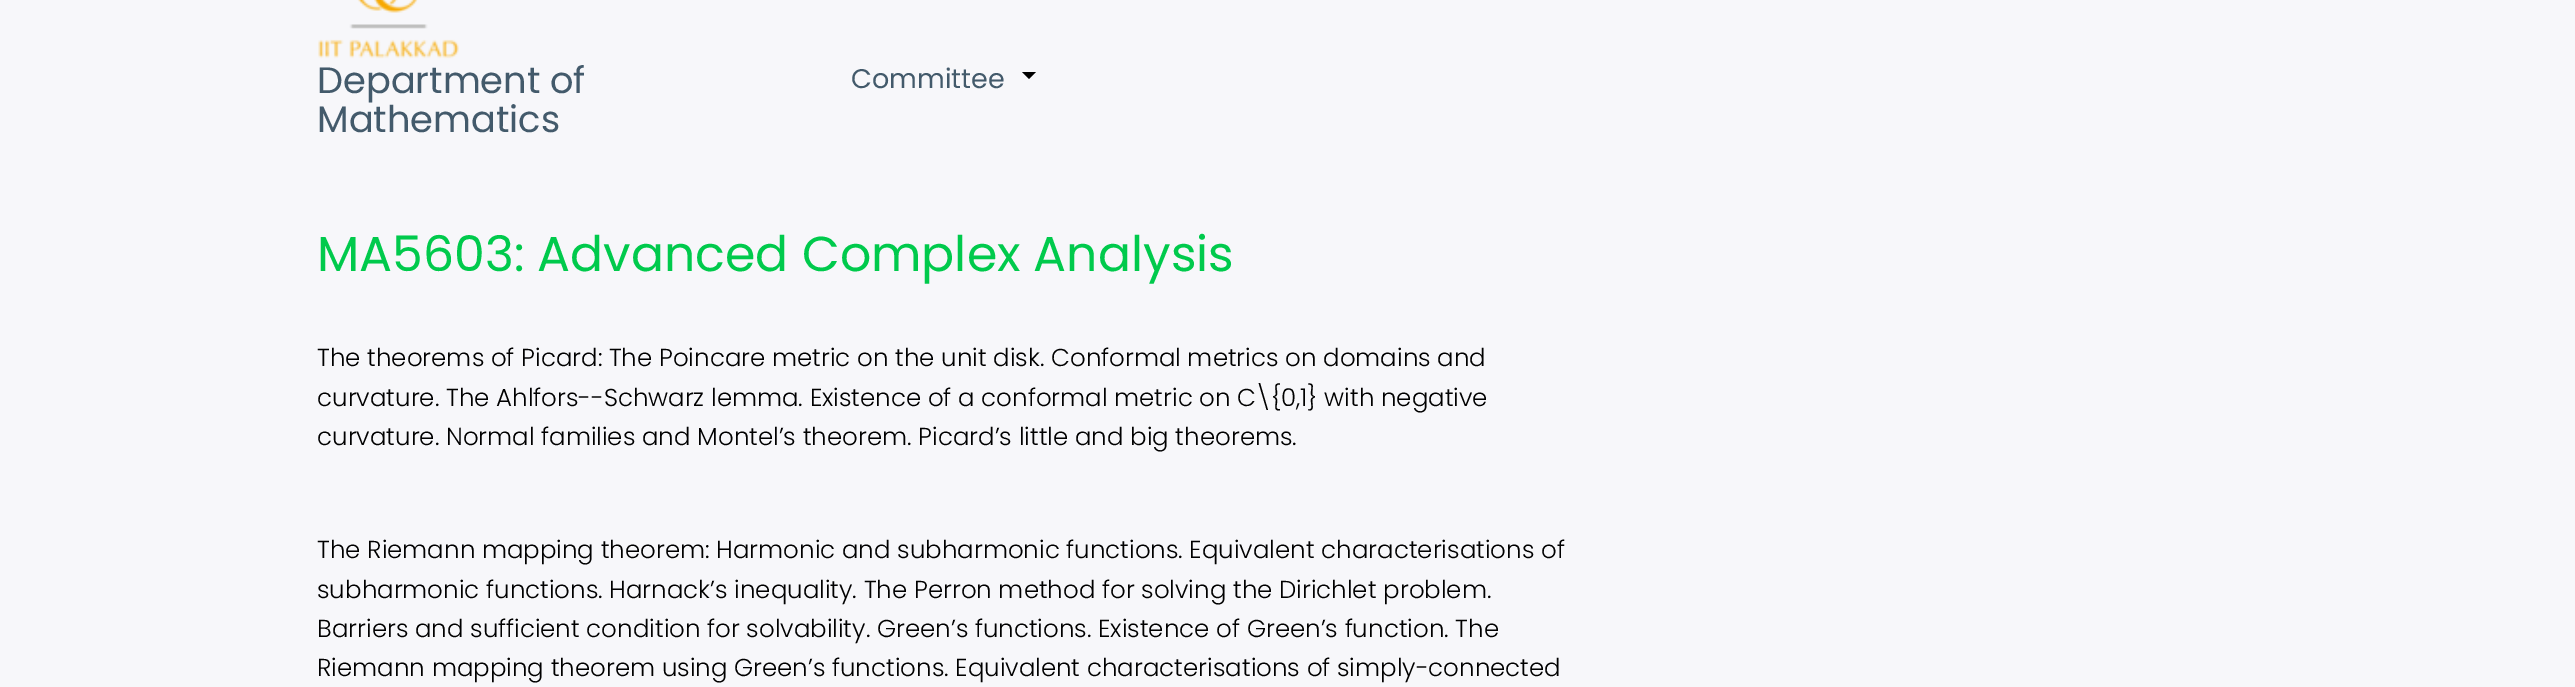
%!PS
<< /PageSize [2575 687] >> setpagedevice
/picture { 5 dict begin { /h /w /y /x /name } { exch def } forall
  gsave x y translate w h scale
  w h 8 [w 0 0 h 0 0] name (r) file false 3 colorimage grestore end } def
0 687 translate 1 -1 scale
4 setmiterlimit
0.969 0.969 0.98 setrgbcolor
0 0 2575 687 rectfill
(img1.rgb) 318 0 141 59 picture
/Poppins-Regular [36.75 0 0 -36.75 0 0] selectfont
0.263 0.353 0.42 setrgbcolor
317 93 moveto (Department of) show
317 132 moveto (Mathematics) show
/Poppins-Regular [27 0 0 -27 0 0] selectfont
851 88 moveto (Committee) show
0 setgray
newpath 1022 72 moveto 1036 72 lineto 1029 79 lineto closepath fill
/Poppins-Regular [49 0 0 -49 0 0] selectfont
0 0.792 0.298 setrgbcolor
317 271 moveto (MA5603: Advanced Complex Analysis) show
/Poppins-Light [24.5 0 0 -24.5 0 0] selectfont
0 setgray
317 366 moveto (The theorems of Picard: The Poincare metric on the unit disk. Conformal metrics on domains and) show
317 406 moveto (curvature. The Ahlfors--Schwarz lemma. Existence of a conformal metric on C\\{0,1} with negative) show
317 445 moveto (curvature. Normal families and Montel’s theorem. Picard’s little and big theorems.) show
317 558 moveto (The Riemann mapping theorem: Harmonic and subharmonic functions. Equivalent characterisations of) show
317 598 moveto (subharmonic functions. Harnack’s inequality. The Perron method for solving the Dirichlet problem.) show
317 637 moveto (Barriers and sufficient condition for solvability. Green’s functions. Existence of Green’s function. The) show
317 676 moveto (Riemann mapping theorem using Green’s functions. Equivalent characterisations of simply-connected) show
showpage
